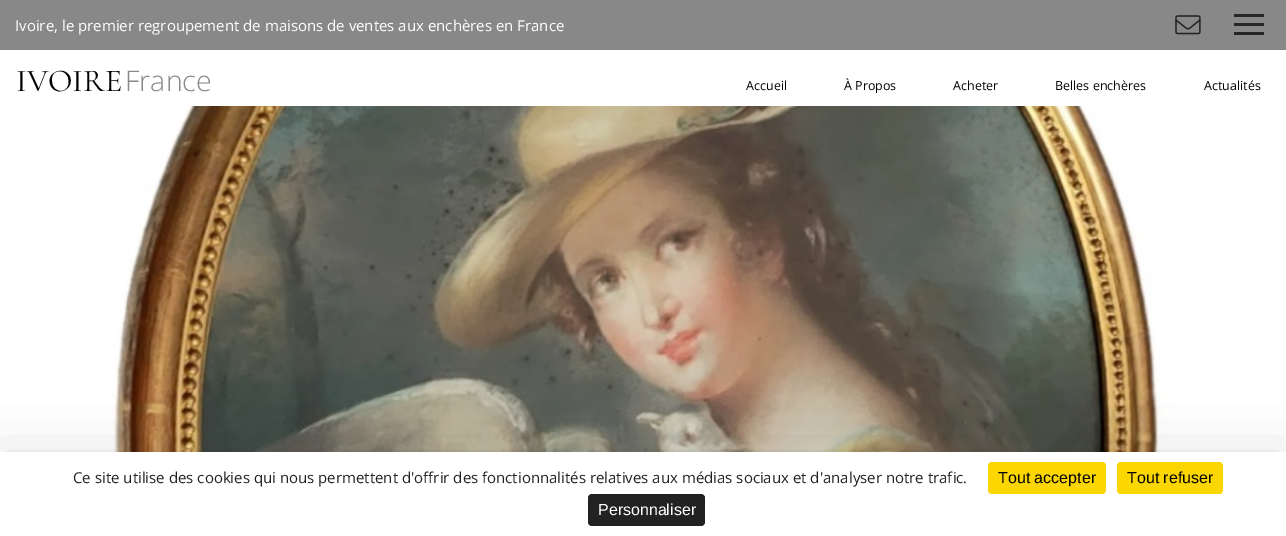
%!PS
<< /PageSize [1286 536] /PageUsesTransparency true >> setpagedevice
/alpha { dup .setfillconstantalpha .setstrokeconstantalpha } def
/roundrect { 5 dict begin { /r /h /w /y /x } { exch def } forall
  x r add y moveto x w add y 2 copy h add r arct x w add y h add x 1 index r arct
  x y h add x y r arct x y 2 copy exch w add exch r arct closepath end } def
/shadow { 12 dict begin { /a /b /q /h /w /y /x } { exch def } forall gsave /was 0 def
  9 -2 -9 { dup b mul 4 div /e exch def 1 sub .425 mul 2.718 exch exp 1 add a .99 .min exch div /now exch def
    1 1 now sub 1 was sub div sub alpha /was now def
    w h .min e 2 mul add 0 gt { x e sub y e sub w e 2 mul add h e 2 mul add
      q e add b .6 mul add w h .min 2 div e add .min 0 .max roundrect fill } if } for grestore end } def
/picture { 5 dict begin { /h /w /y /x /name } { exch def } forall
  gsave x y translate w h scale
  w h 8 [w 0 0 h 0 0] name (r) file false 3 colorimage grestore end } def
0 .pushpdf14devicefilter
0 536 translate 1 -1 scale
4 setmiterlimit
1 setgray
0 0 1286 536 rectfill
0.533 setgray
0 0 1286 50 rectfill
/OpenSans-Regular [15 0 0 -15 0 0] selectfont
1 setgray
15 31 moveto (Ivoire, le premier regroupement de maisons de ventes aux enchères en France) show
(img1.rgb) 1175 15 26 20 picture
0.149 setgray
1234 14 30 3 rectfill
1234 23 30 3 rectfill
1234 32 30 3 rectfill
/CormorantGaramond-Regular [32 0 0 -32 0 0] selectfont
0 setgray
16 91 moveto (IVOIRE) show
/OpenSans-Light [28.5 0 0 -28.5 0 0] selectfont
0.533 setgray
125 91 moveto (France) show
/OpenSans-Regular [12.5 0 0 -12.5 0 0] selectfont
0 setgray
746 90 moveto (Accueil) show
844 90 moveto (À Propos) show
953 90 moveto (Acheter) show
1055 90 moveto (Belles enchères) show
1204 90 moveto (Actualités) show
(img2.rgb) 0 106 1286 346 picture
0 472 1286 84 0 30 0.25 shadow
1 setgray
0 452 1286 84 rectfill
/OpenSans-Regular [15 0 0 -15 0 0] selectfont
0.133 setgray
73 483 moveto (Ce site utilise des cookies qui nous permettent d'offrir des fonctionnalités relatives aux médias sociaux et d'analyser notre trafic.) show
0.984 0.839 0 setrgbcolor
988 462 118 32 4 roundrect fill
/LiberationSans-Regular [16 0 0 -16 0 0] selectfont
0 setgray
998 483 moveto (Tout accepter) show
0.984 0.839 0 setrgbcolor
1117 462 106 32 4 roundrect fill
0 setgray
1127 483 moveto (Tout refuser) show
0.133 setgray
588 494 117 32 4 roundrect fill
1 setgray
598 515 moveto (Personnaliser) show
.poppdf14devicefilter showpage
